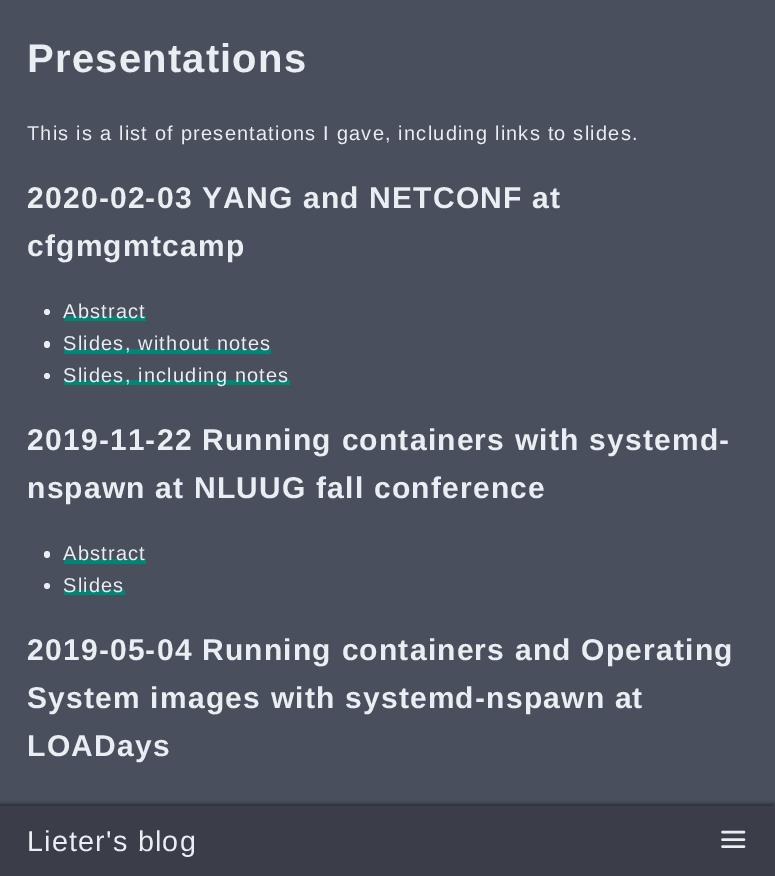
%!PS
<< /PageSize [775 876] /PageUsesTransparency true >> setpagedevice
/alpha { dup .setfillconstantalpha .setstrokeconstantalpha } def
/roundrect { 5 dict begin { /r /h /w /y /x } { exch def } forall
  x r add y moveto x w add y 2 copy h add r arct x w add y h add x 1 index r arct
  x y h add x y r arct x y 2 copy exch w add exch r arct closepath end } def
/shadow { 12 dict begin { /a /b /q /h /w /y /x } { exch def } forall gsave /was 0 def
  9 -2 -9 { dup b mul 4 div /e exch def 1 sub .425 mul 2.718 exch exp 1 add a .99 .min exch div /now exch def
    1 1 now sub 1 was sub div sub alpha /was now def
    w h .min e 2 mul add 0 gt { x e sub y e sub w e 2 mul add h e 2 mul add
      q e add b .6 mul add w h .min 2 div e add .min 0 .max roundrect fill } if } for grestore end } def
0 .pushpdf14devicefilter
0 876 translate 1 -1 scale
4 setmiterlimit
0.286 0.31 0.361 setrgbcolor
0 0 775 876 rectfill
/LiberationSans-Bold [40 0 0 -40 0 0] selectfont
0.91 0.933 0.949 setrgbcolor
27 72 moveto 1.2 0 (Presentations) ashow
/LiberationSans-Regular [20 0 0 -20 0 0] selectfont
27 140 moveto 1.2 0 (This is a list of presentations I gave, including links to slides.) ashow
/LiberationSans-Bold [30 0 0 -30 0 0] selectfont
27 208 moveto 1.2 0 (2020-02-03 YANG and NETCONF at) ashow
27 256 moveto 1.2 0 (cfgmgmtcamp) ashow
newpath 47 312 3 0 360 arc closepath fill
0.004 0.522 0.455 setrgbcolor
64 316 82 5 rectfill
/LiberationSans-Regular [20 0 0 -20 0 0] selectfont
0.91 0.933 0.949 setrgbcolor
63 318 moveto 1.2 0 (Abstract) ashow
44 341 6 7 3 roundrect fill
0.004 0.522 0.455 setrgbcolor
64 349 207 5 rectfill
0.91 0.933 0.949 setrgbcolor
63 350 moveto 1.2 0 (Slides, without notes) ashow
newpath 47 376 3 0 360 arc closepath fill
0.004 0.522 0.455 setrgbcolor
64 380 226 5 rectfill
0.91 0.933 0.949 setrgbcolor
63 382 moveto 1.2 0 (Slides, including notes) ashow
/LiberationSans-Bold [30 0 0 -30 0 0] selectfont
27 450 moveto 1.2 0 (2019-11-22 Running containers with systemd-) ashow
27 498 moveto 1.2 0 (nspawn at NLUUG fall conference) ashow
44 551 6 7 3 roundrect fill
0.004 0.522 0.455 setrgbcolor
64 559 82 5 rectfill
/LiberationSans-Regular [20 0 0 -20 0 0] selectfont
0.91 0.933 0.949 setrgbcolor
63 560 moveto 1.2 0 (Abstract) ashow
newpath 47 586 3 0 360 arc closepath fill
0.004 0.522 0.455 setrgbcolor
64 590 61 5 rectfill
0.91 0.933 0.949 setrgbcolor
63 592 moveto 1.2 0 (Slides) ashow
/LiberationSans-Bold [30 0 0 -30 0 0] selectfont
27 660 moveto 1.2 0 (2019-05-04 Running containers and Operating) ashow
27 708 moveto 1.2 0 (System images with systemd-nspawn at) ashow
27 756 moveto 1.2 0 (LOADays) ashow
0 setgray
-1 804 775 70 0 2 0.45 shadow
0.231 0.243 0.282 setrgbcolor
0 806 775 70 rectfill
/LiberationSans-Regular [28.75 0 0 -28.75 0 0] selectfont
0.91 0.933 0.949 setrgbcolor
27 851 moveto 1.2 0 (Lieter's blog) ashow
2.4 setlinewidth
1 setlinecap
1 setlinejoin
newpath 722.5 839.5 moveto 744 839.5 lineto 722.5 832 moveto 744 832 lineto 722.5 846.5 moveto 744 846.5 lineto stroke
.poppdf14devicefilter showpage
